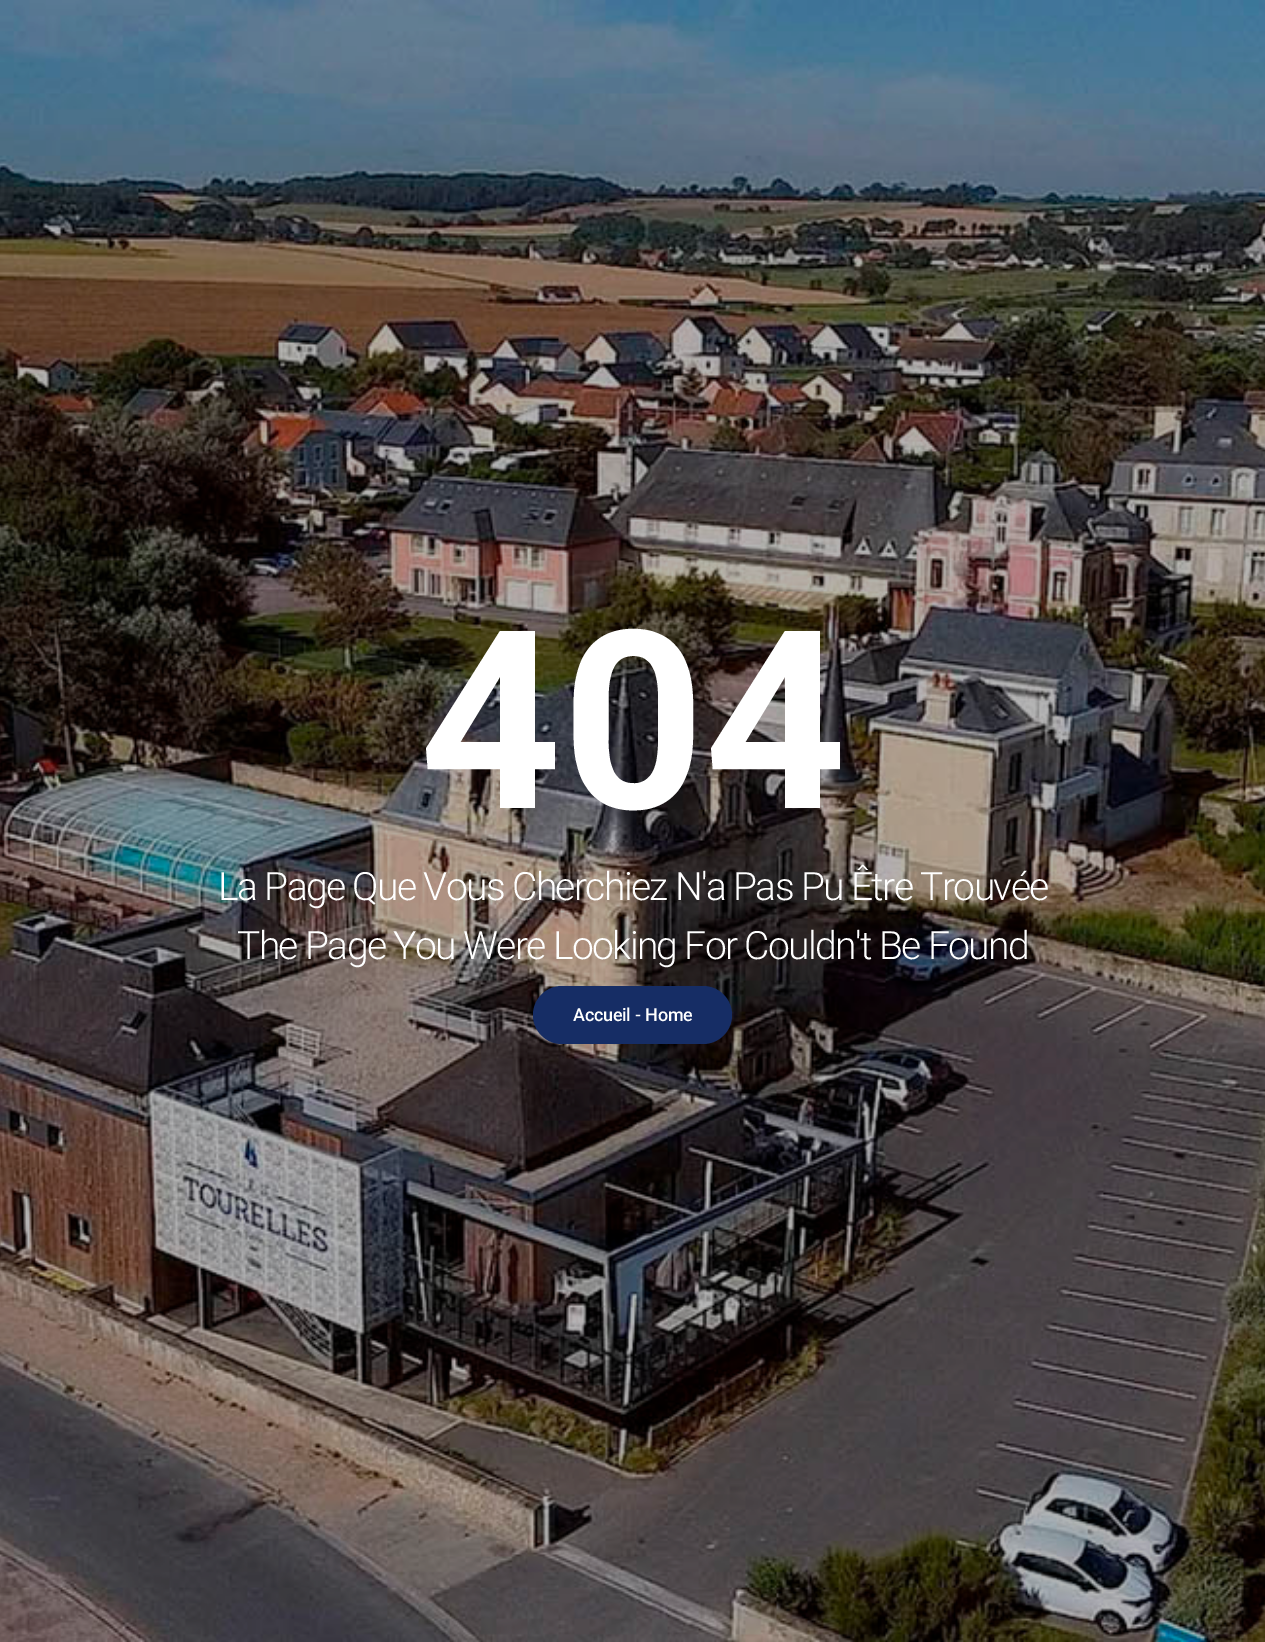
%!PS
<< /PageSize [1265 1642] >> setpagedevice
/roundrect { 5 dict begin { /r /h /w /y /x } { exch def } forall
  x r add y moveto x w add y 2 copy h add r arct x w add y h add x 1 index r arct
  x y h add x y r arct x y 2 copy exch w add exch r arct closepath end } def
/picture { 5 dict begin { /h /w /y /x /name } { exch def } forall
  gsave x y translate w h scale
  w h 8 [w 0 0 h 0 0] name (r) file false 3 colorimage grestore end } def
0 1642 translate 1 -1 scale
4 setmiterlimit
1 setgray
0 0 1265 1642 rectfill
(img1.rgb) 0 0 1265 1642 picture
/Roboto-Bold [249 0 0 -249 0 0] selectfont
419 808 moveto -0.25 0 (404) ashow
/Roboto-Light [39 0 0 -39 0 0] selectfont
218 900 moveto -1.62 0 (La Page Que Vous Cherchiez N'a Pas Pu Être Trouvée) ashow
237 959 moveto -1.62 0 (The Page You Were Looking For Couldn't Be Found) ashow
0.086 0.176 0.396 setrgbcolor
533 986 199 58 29 roundrect fill
/Roboto-Medium [18 0 0 -18 0 0] selectfont
1 setgray
573 1021 moveto -0.25 0 (Accueil - Home) ashow
showpage
